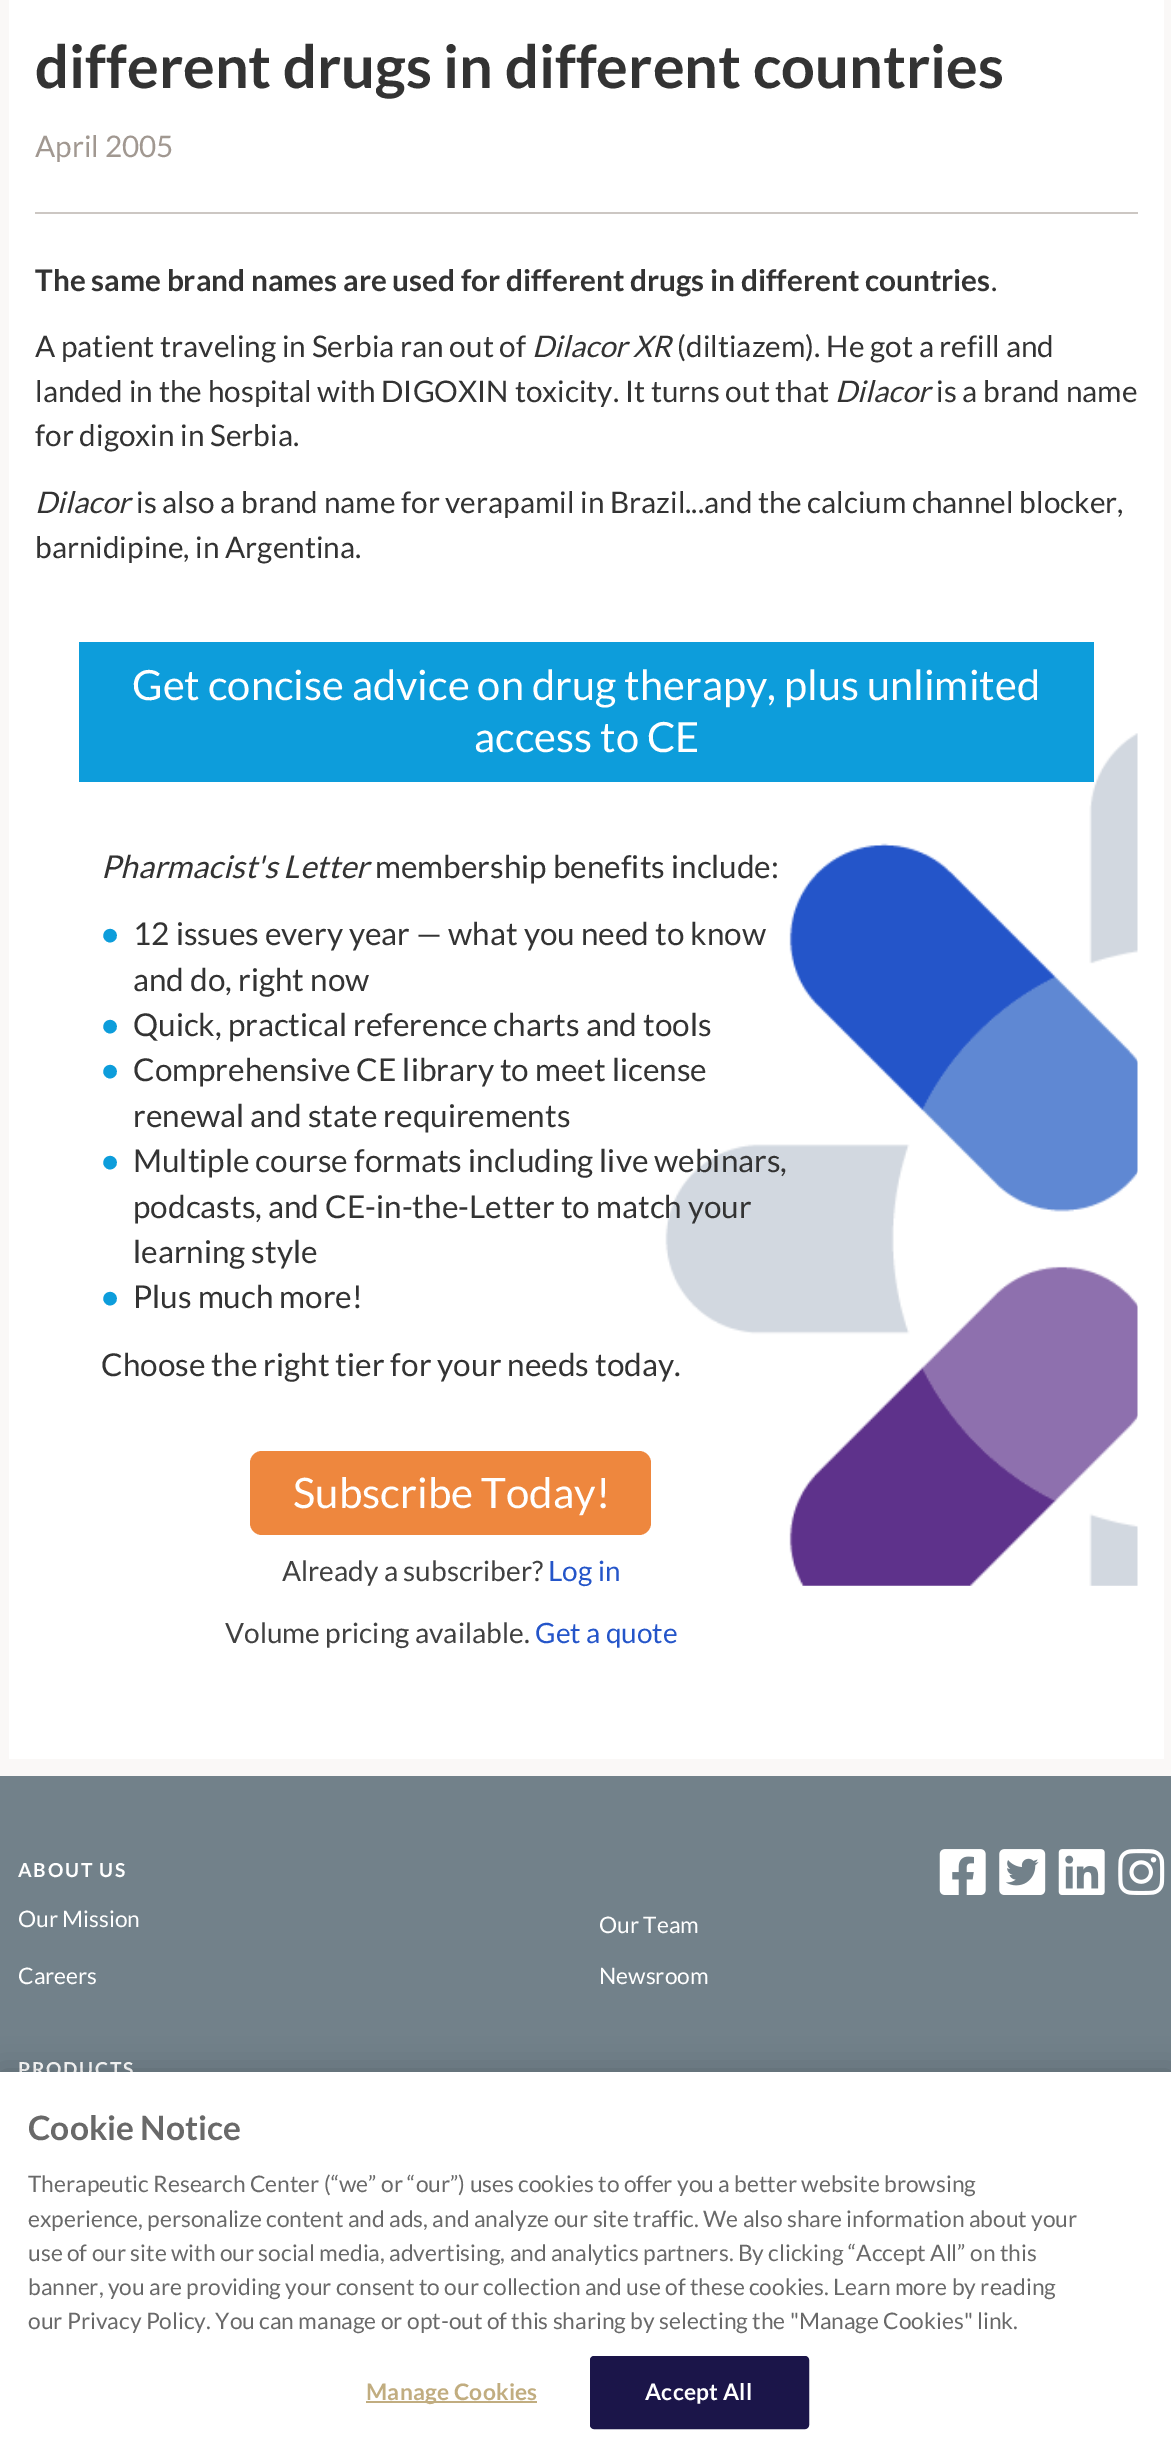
%!PS
<< /PageSize [1171 2446] /PageUsesTransparency true >> setpagedevice
/alpha { dup .setfillconstantalpha .setstrokeconstantalpha } def
/roundrect { 5 dict begin { /r /h /w /y /x } { exch def } forall
  x r add y moveto x w add y 2 copy h add r arct x w add y h add x 1 index r arct
  x y h add x y r arct x y 2 copy exch w add exch r arct closepath end } def
/shadow { 12 dict begin { /a /b /q /h /w /y /x } { exch def } forall gsave /was 0 def
  9 -2 -9 { dup b mul 4 div /e exch def 1 sub .425 mul 2.718 exch exp 1 add a .99 .min exch div /now exch def
    1 1 now sub 1 was sub div sub alpha /was now def
    w h .min e 2 mul add 0 gt { x e sub y e sub w e 2 mul add h e 2 mul add
      q e add b .6 mul add w h .min 2 div e add .min 0 .max roundrect fill } if } for grestore end } def
/picture { 5 dict begin { /h /w /y /x /name } { exch def } forall
  gsave x y translate w h scale
  w h 8 [w 0 0 h 0 0] name (r) file false 3 colorimage grestore end } def
0 .pushpdf14devicefilter
0 2446 translate 1 -1 scale
4 setmiterlimit
0.98 0.973 0.969 setrgbcolor
0 0 1171 2446 rectfill
1 setgray
9 0 1155 1759 rectfill
/Lato-Bold [59.5 0 0 -59.5 0 0] selectfont
0.2 setgray
35 88 moveto (different drugs in different countries) show
/Lato-Regular [29.75 0 0 -29.75 0 0] selectfont
0.631 0.596 0.569 setrgbcolor
35 157 moveto (April 2005) show
0.8 0.78 0.765 setrgbcolor
35 212 1103 2 rectfill
/Lato-Bold [29.75 0 0 -29.75 0 0] selectfont
0.2 setgray
35 291 moveto (The same brand names are used for different drugs in different countries) show
/Lato-Regular [29.75 0 0 -29.75 0 0] selectfont
991 291 moveto (.) show
35 357 moveto (A patient traveling in Serbia ran out of) show
/Lato-Italic [29.75 0 0 -29.75 0 0] selectfont
532 357 moveto (Dilacor XR) show
/Lato-Regular [29.75 0 0 -29.75 0 0] selectfont
677 357 moveto (\(diltiazem\). He got a refill and) show
35 402 moveto (landed in the hospital with DIGOXIN toxicity. It turns out that) show
/Lato-Italic [29.75 0 0 -29.75 0 0] selectfont
835 402 moveto (Dilacor) show
/Lato-Regular [29.75 0 0 -29.75 0 0] selectfont
936 402 moveto (is a brand name) show
35 446 moveto (for digoxin in Serbia.) show
/Lato-Italic [29.75 0 0 -29.75 0 0] selectfont
35 513 moveto (Dilacor) show
/Lato-Regular [29.75 0 0 -29.75 0 0] selectfont
136 513 moveto (is also a brand name for verapamil in Brazil...and the calcium channel blocker,) show
35 558 moveto (barnidipine, in Argentina.) show
(img1.rgb) 665 733 473 853 picture
0.051 0.616 0.859 setrgbcolor
79 642 1015 140 rectfill
/Lato-Regular [41.65 0 0 -41.65 0 0] selectfont
1 setgray
132 700 moveto (Get concise advice on drug therapy, plus unlimited) show
474 752 moveto (access to CE) show
/Lato-Italic [31.5 0 0 -31.5 0 0] selectfont
0.2 setgray
101 878 moveto (Pharmacist's Letter) show
/Lato-Regular [31.5 0 0 -31.5 0 0] selectfont
375 878 moveto (membership benefits include:) show
/Lato-Bold [31.5 0 0 -31.5 0 0] selectfont
0.051 0.616 0.859 setrgbcolor
101 945 moveto (•) show
/Lato-Regular [31.5 0 0 -31.5 0 0] selectfont
0.2 setgray
133 945 moveto (12 issues every year — what you need to know) show
133 991 moveto (and do, right now) show
/Lato-Bold [31.5 0 0 -31.5 0 0] selectfont
0.051 0.616 0.859 setrgbcolor
101 1036 moveto (•) show
/Lato-Regular [31.5 0 0 -31.5 0 0] selectfont
0.2 setgray
133 1036 moveto (Quick, practical reference charts and tools) show
/Lato-Bold [31.5 0 0 -31.5 0 0] selectfont
0.051 0.616 0.859 setrgbcolor
101 1081 moveto (•) show
/Lato-Regular [31.5 0 0 -31.5 0 0] selectfont
0.2 setgray
133 1081 moveto (Comprehensive CE library to meet license) show
133 1127 moveto (renewal and state requirements) show
/Lato-Bold [31.5 0 0 -31.5 0 0] selectfont
0.051 0.616 0.859 setrgbcolor
101 1172 moveto (•) show
/Lato-Regular [31.5 0 0 -31.5 0 0] selectfont
0.2 setgray
133 1172 moveto (Multiple course formats including live webinars,) show
133 1218 moveto (podcasts, and CE-in-the-Letter to match your) show
133 1263 moveto (learning style) show
/Lato-Bold [31.5 0 0 -31.5 0 0] selectfont
0.051 0.616 0.859 setrgbcolor
101 1308 moveto (•) show
/Lato-Regular [31.5 0 0 -31.5 0 0] selectfont
0.2 setgray
133 1308 moveto (Plus much more!) show
101 1376 moveto (Choose the right tier for your needs today.) show
0.933 0.529 0.243 setrgbcolor
250 1451 401 84 12 roundrect fill
/Lato-Regular [42 0 0 -42 0 0] selectfont
1 setgray
293 1508 moveto (Subscribe Today!) show
/Lato-Regular [28 0 0 -28 0 0] selectfont
0.255 setgray
282 1581 moveto (Already a subscriber?) show
0.141 0.333 0.788 setrgbcolor
548 1581 moveto (Log in) show
0.255 setgray
225 1643 moveto (Volume pricing available.) show
0.141 0.333 0.788 setrgbcolor
535 1643 moveto (Get a quote) show
0.447 0.506 0.541 setrgbcolor
0 1776 1171 296 rectfill
/Lato-Bold [19.25 0 0 -19.25 0 0] selectfont
1 setgray
18 1877 moveto 1.75 0 (ABOUT US) ashow
/Lato-Regular [22.75 0 0 -22.75 0 0] selectfont
18 1927 moveto (Our Mission) show
599 1933 moveto (Our Team) show
18 1984 moveto (Careers) show
599 1984 moveto (Newsroom) show
/Lato-Bold [19.25 0 0 -19.25 0 0] selectfont
18 2076 moveto 1.75 0 (PRODUCTS) ashow
(img2.rgb) 939 1849 47 46 picture
(img3.rgb) 999 1849 47 46 picture
(img4.rgb) 1058 1849 47 46 picture
(img5.rgb) 1118 1849 47 46 picture
0 setgray
0 2072 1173 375 0 16 0.2 shadow
1 setgray
0 2072 1171 374 rectfill
/Lato-Bold [33.5 0 0 -33.5 0 0] selectfont
0.412 setgray
28 2140 moveto (Cookie Notice) show
/Lato-Regular [22.75 0 0 -22.75 0 0] selectfont
28 2192 moveto (Therapeutic Research Center \(“we” or “our”\) uses cookies to offer you a better website browsing) show
28 2227 moveto (experience, personalize content and ads, and analyze our site traffic. We also share information about your) show
28 2261 moveto (use of our site with our social media, advertising, and analytics partners. By clicking “Accept All” on this) show
28 2295 moveto (banner, you are providing your consent to our collection and use of these cookies. Learn more by reading) show
28 2329 moveto (our Privacy Policy. You can manage or opt-out of this sharing by selecting the "Manage Cookies" link.) show
0.757 0.678 0.502 setrgbcolor
366 2401 171 2 rectfill
/Lato-Bold [22.75 0 0 -22.75 0 0] selectfont
366 2400 moveto 0.25 0 (Manage Cookies) ashow
0.106 0.082 0.286 setrgbcolor
591 2357 217 71 3 roundrect gsave fill grestore
2 setlinewidth
stroke
1 setgray
645 2400 moveto 0.25 0 (Accept All) ashow
.poppdf14devicefilter showpage
